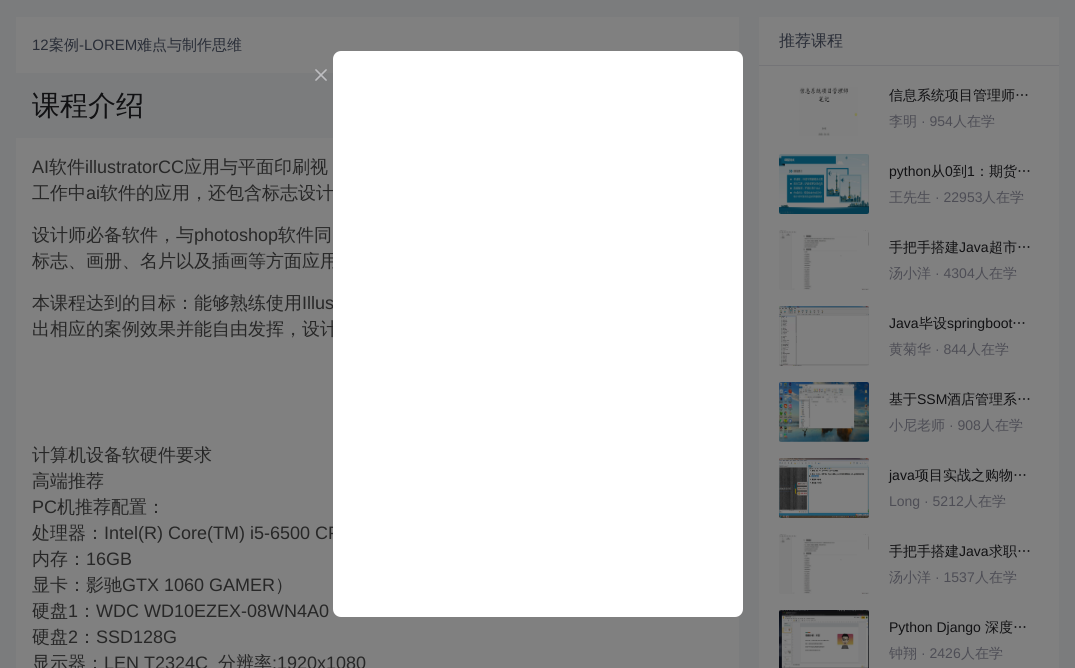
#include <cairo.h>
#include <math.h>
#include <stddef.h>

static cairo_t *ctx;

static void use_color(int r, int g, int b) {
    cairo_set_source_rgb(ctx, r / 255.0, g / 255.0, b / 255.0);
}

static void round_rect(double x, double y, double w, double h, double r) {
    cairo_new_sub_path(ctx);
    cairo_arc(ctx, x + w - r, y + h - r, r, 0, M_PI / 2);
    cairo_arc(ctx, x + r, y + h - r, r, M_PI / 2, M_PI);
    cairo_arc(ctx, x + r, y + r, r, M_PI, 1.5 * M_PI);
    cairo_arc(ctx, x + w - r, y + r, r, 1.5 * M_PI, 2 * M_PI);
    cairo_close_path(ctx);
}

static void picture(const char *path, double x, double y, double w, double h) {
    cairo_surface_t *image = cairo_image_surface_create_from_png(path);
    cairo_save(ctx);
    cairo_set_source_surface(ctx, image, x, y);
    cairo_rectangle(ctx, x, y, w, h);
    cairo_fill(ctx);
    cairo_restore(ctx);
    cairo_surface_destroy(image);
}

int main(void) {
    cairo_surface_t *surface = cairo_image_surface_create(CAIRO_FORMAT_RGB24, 1075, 668);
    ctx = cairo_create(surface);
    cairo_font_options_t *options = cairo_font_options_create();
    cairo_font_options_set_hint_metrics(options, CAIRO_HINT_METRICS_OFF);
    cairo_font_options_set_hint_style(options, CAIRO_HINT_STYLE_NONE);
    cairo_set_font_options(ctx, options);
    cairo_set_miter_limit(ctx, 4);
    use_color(123, 124, 125);
    cairo_paint(ctx);
    use_color(128, 128, 128);
    cairo_rectangle(ctx, 16, 17, 723, 56);
    cairo_fill(ctx);
    cairo_select_font_face(ctx, "Liberation Sans", CAIRO_FONT_SLANT_NORMAL, CAIRO_FONT_WEIGHT_NORMAL);
    cairo_set_font_size(ctx, 15);
    use_color(41, 45, 55);
    cairo_move_to(ctx, 32, 50);
    cairo_show_text(ctx, "12");
    cairo_select_font_face(ctx, "WenQuanYi Zen Hei Medium", CAIRO_FONT_SLANT_NORMAL, CAIRO_FONT_WEIGHT_NORMAL);
    cairo_move_to(ctx, 49, 50);
    cairo_show_text(ctx, "案例");
    cairo_select_font_face(ctx, "Liberation Sans", CAIRO_FONT_SLANT_NORMAL, CAIRO_FONT_WEIGHT_NORMAL);
    cairo_move_to(ctx, 79, 50);
    cairo_show_text(ctx, "-LOREM");
    cairo_select_font_face(ctx, "WenQuanYi Zen Hei Medium", CAIRO_FONT_SLANT_NORMAL, CAIRO_FONT_WEIGHT_NORMAL);
    cairo_move_to(ctx, 137, 50);
    cairo_show_text(ctx, "难点与制作思维");
    cairo_set_font_size(ctx, 28);
    use_color(17, 17, 19);
    cairo_move_to(ctx, 32, 115);
    cairo_show_text(ctx, "课程介绍");
    use_color(128, 128, 128);
    cairo_rectangle(ctx, 16, 138, 723, 530);
    cairo_fill(ctx);
    cairo_select_font_face(ctx, "Liberation Sans", CAIRO_FONT_SLANT_NORMAL, CAIRO_FONT_WEIGHT_NORMAL);
    cairo_set_font_size(ctx, 18);
    use_color(39, 39, 39);
    cairo_move_to(ctx, 32, 173);
    cairo_show_text(ctx, "AI");
    cairo_select_font_face(ctx, "WenQuanYi Zen Hei Medium", CAIRO_FONT_SLANT_NORMAL, CAIRO_FONT_WEIGHT_NORMAL);
    cairo_move_to(ctx, 49, 173);
    cairo_show_text(ctx, "软件");
    cairo_select_font_face(ctx, "Liberation Sans", CAIRO_FONT_SLANT_NORMAL, CAIRO_FONT_WEIGHT_NORMAL);
    cairo_move_to(ctx, 85, 173);
    cairo_show_text(ctx, "illustratorCC");
    cairo_select_font_face(ctx, "WenQuanYi Zen Hei Medium", CAIRO_FONT_SLANT_NORMAL, CAIRO_FONT_WEIGHT_NORMAL);
    cairo_move_to(ctx, 184, 173);
    cairo_show_text(ctx, "应用与平面印刷视");
    cairo_move_to(ctx, 32, 199);
    cairo_show_text(ctx, "工作中");
    cairo_select_font_face(ctx, "Liberation Sans", CAIRO_FONT_SLANT_NORMAL, CAIRO_FONT_WEIGHT_NORMAL);
    cairo_move_to(ctx, 86, 199);
    cairo_show_text(ctx, "ai");
    cairo_select_font_face(ctx, "WenQuanYi Zen Hei Medium", CAIRO_FONT_SLANT_NORMAL, CAIRO_FONT_WEIGHT_NORMAL);
    cairo_move_to(ctx, 100, 199);
    cairo_show_text(ctx, "软件的应用，还包含标志设计");
    cairo_move_to(ctx, 32, 241);
    cairo_show_text(ctx, "设计师必备软件，与");
    cairo_select_font_face(ctx, "Liberation Sans", CAIRO_FONT_SLANT_NORMAL, CAIRO_FONT_WEIGHT_NORMAL);
    cairo_move_to(ctx, 194, 241);
    cairo_show_text(ctx, "photoshop");
    cairo_select_font_face(ctx, "WenQuanYi Zen Hei Medium", CAIRO_FONT_SLANT_NORMAL, CAIRO_FONT_WEIGHT_NORMAL);
    cairo_move_to(ctx, 278, 241);
    cairo_show_text(ctx, "软件同");
    cairo_move_to(ctx, 32, 267);
    cairo_show_text(ctx, "标志、画册、名片以及插画等方面应用");
    cairo_move_to(ctx, 32, 309);
    cairo_show_text(ctx, "本课程达到的目标：能够熟练使用");
    cairo_select_font_face(ctx, "Liberation Sans", CAIRO_FONT_SLANT_NORMAL, CAIRO_FONT_WEIGHT_NORMAL);
    cairo_move_to(ctx, 302, 309);
    cairo_show_text(ctx, "Illus");
    cairo_select_font_face(ctx, "WenQuanYi Zen Hei Medium", CAIRO_FONT_SLANT_NORMAL, CAIRO_FONT_WEIGHT_NORMAL);
    cairo_move_to(ctx, 32, 335);
    cairo_show_text(ctx, "出相应的案例效果并能自由发挥，设计");
    cairo_move_to(ctx, 32, 461);
    cairo_show_text(ctx, "计算机设备软硬件要求");
    cairo_move_to(ctx, 32, 487);
    cairo_show_text(ctx, "高端推荐");
    cairo_select_font_face(ctx, "Liberation Sans", CAIRO_FONT_SLANT_NORMAL, CAIRO_FONT_WEIGHT_NORMAL);
    cairo_move_to(ctx, 32, 513);
    cairo_show_text(ctx, "PC");
    cairo_select_font_face(ctx, "WenQuanYi Zen Hei Medium", CAIRO_FONT_SLANT_NORMAL, CAIRO_FONT_WEIGHT_NORMAL);
    cairo_move_to(ctx, 57, 513);
    cairo_show_text(ctx, "机推荐配置：");
    cairo_move_to(ctx, 32, 539);
    cairo_show_text(ctx, "处理器：");
    cairo_select_font_face(ctx, "Liberation Sans", CAIRO_FONT_SLANT_NORMAL, CAIRO_FONT_WEIGHT_NORMAL);
    cairo_move_to(ctx, 104, 539);
    cairo_show_text(ctx, "Intel(R) Core(TM) i5-6500 CP");
    cairo_select_font_face(ctx, "WenQuanYi Zen Hei Medium", CAIRO_FONT_SLANT_NORMAL, CAIRO_FONT_WEIGHT_NORMAL);
    cairo_move_to(ctx, 32, 565);
    cairo_show_text(ctx, "内存：");
    cairo_select_font_face(ctx, "Liberation Sans", CAIRO_FONT_SLANT_NORMAL, CAIRO_FONT_WEIGHT_NORMAL);
    cairo_move_to(ctx, 86, 565);
    cairo_show_text(ctx, "16GB");
    cairo_select_font_face(ctx, "WenQuanYi Zen Hei Medium", CAIRO_FONT_SLANT_NORMAL, CAIRO_FONT_WEIGHT_NORMAL);
    cairo_move_to(ctx, 32, 591);
    cairo_show_text(ctx, "显卡：影驰");
    cairo_select_font_face(ctx, "Liberation Sans", CAIRO_FONT_SLANT_NORMAL, CAIRO_FONT_WEIGHT_NORMAL);
    cairo_move_to(ctx, 122, 591);
    cairo_show_text(ctx, "GTX 1060 GAMER");
    cairo_select_font_face(ctx, "WenQuanYi Zen Hei Medium", CAIRO_FONT_SLANT_NORMAL, CAIRO_FONT_WEIGHT_NORMAL);
    cairo_move_to(ctx, 275, 591);
    cairo_show_text(ctx, "）");
    cairo_move_to(ctx, 32, 617);
    cairo_show_text(ctx, "硬盘");
    cairo_select_font_face(ctx, "Liberation Sans", CAIRO_FONT_SLANT_NORMAL, CAIRO_FONT_WEIGHT_NORMAL);
    cairo_move_to(ctx, 68, 617);
    cairo_show_text(ctx, "1");
    cairo_select_font_face(ctx, "WenQuanYi Zen Hei Medium", CAIRO_FONT_SLANT_NORMAL, CAIRO_FONT_WEIGHT_NORMAL);
    cairo_move_to(ctx, 78, 617);
    cairo_show_text(ctx, "：");
    cairo_select_font_face(ctx, "Liberation Sans", CAIRO_FONT_SLANT_NORMAL, CAIRO_FONT_WEIGHT_NORMAL);
    cairo_move_to(ctx, 96, 617);
    cairo_show_text(ctx, "WDC WD10EZEX-08WN4A0");
    cairo_select_font_face(ctx, "WenQuanYi Zen Hei Medium", CAIRO_FONT_SLANT_NORMAL, CAIRO_FONT_WEIGHT_NORMAL);
    cairo_move_to(ctx, 32, 643);
    cairo_show_text(ctx, "硬盘");
    cairo_select_font_face(ctx, "Liberation Sans", CAIRO_FONT_SLANT_NORMAL, CAIRO_FONT_WEIGHT_NORMAL);
    cairo_move_to(ctx, 68, 643);
    cairo_show_text(ctx, "2");
    cairo_select_font_face(ctx, "WenQuanYi Zen Hei Medium", CAIRO_FONT_SLANT_NORMAL, CAIRO_FONT_WEIGHT_NORMAL);
    cairo_move_to(ctx, 78, 643);
    cairo_show_text(ctx, "：");
    cairo_select_font_face(ctx, "Liberation Sans", CAIRO_FONT_SLANT_NORMAL, CAIRO_FONT_WEIGHT_NORMAL);
    cairo_move_to(ctx, 96, 643);
    cairo_show_text(ctx, "SSD128G");
    cairo_select_font_face(ctx, "WenQuanYi Zen Hei Medium", CAIRO_FONT_SLANT_NORMAL, CAIRO_FONT_WEIGHT_NORMAL);
    cairo_move_to(ctx, 32, 669);
    cairo_show_text(ctx, "显示器：");
    cairo_select_font_face(ctx, "Liberation Sans", CAIRO_FONT_SLANT_NORMAL, CAIRO_FONT_WEIGHT_NORMAL);
    cairo_move_to(ctx, 104, 669);
    cairo_show_text(ctx, "LEN T2324C");
    cairo_select_font_face(ctx, "WenQuanYi Zen Hei Medium", CAIRO_FONT_SLANT_NORMAL, CAIRO_FONT_WEIGHT_NORMAL);
    cairo_move_to(ctx, 218, 669);
    cairo_show_text(ctx, "分辨率");
    cairo_select_font_face(ctx, "Liberation Sans", CAIRO_FONT_SLANT_NORMAL, CAIRO_FONT_WEIGHT_NORMAL);
    cairo_move_to(ctx, 272, 669);
    cairo_show_text(ctx, ":1920x1080");
    use_color(128, 128, 128);
    cairo_rectangle(ctx, 759, 17, 300, 651);
    cairo_fill(ctx);
    use_color(116, 116, 119);
    cairo_rectangle(ctx, 759, 65, 300, 1);
    cairo_fill(ctx);
    cairo_select_font_face(ctx, "WenQuanYi Zen Hei Medium", CAIRO_FONT_SLANT_NORMAL, CAIRO_FONT_WEIGHT_NORMAL);
    cairo_set_font_size(ctx, 16);
    use_color(41, 45, 55);
    cairo_move_to(ctx, 779, 46);
    cairo_show_text(ctx, "推荐课程");
    picture("img1.png", 799, 87, 59, 49);
    cairo_set_font_size(ctx, 14);
    use_color(17, 17, 19);
    cairo_move_to(ctx, 889, 100);
    cairo_show_text(ctx, "信息系统项目管理师…");
    use_color(77, 77, 85);
    cairo_move_to(ctx, 889, 126);
    cairo_show_text(ctx, "李明");
    cairo_select_font_face(ctx, "Liberation Sans", CAIRO_FONT_SLANT_NORMAL, CAIRO_FONT_WEIGHT_NORMAL);
    cairo_move_to(ctx, 921, 126);
    cairo_show_text(ctx, "· 954");
    cairo_select_font_face(ctx, "WenQuanYi Zen Hei Medium", CAIRO_FONT_SLANT_NORMAL, CAIRO_FONT_WEIGHT_NORMAL);
    cairo_move_to(ctx, 953, 126);
    cairo_show_text(ctx, "人在学");
    picture("img2.png", 779, 154, 90, 60);
    cairo_select_font_face(ctx, "Liberation Sans", CAIRO_FONT_SLANT_NORMAL, CAIRO_FONT_WEIGHT_NORMAL);
    use_color(17, 17, 19);
    cairo_move_to(ctx, 889, 176);
    cairo_show_text(ctx, "python");
    cairo_select_font_face(ctx, "WenQuanYi Zen Hei Medium", CAIRO_FONT_SLANT_NORMAL, CAIRO_FONT_WEIGHT_NORMAL);
    cairo_move_to(ctx, 931, 176);
    cairo_show_text(ctx, "从");
    cairo_select_font_face(ctx, "Liberation Sans", CAIRO_FONT_SLANT_NORMAL, CAIRO_FONT_WEIGHT_NORMAL);
    cairo_move_to(ctx, 945, 176);
    cairo_show_text(ctx, "0");
    cairo_select_font_face(ctx, "WenQuanYi Zen Hei Medium", CAIRO_FONT_SLANT_NORMAL, CAIRO_FONT_WEIGHT_NORMAL);
    cairo_move_to(ctx, 953, 176);
    cairo_show_text(ctx, "到");
    cairo_select_font_face(ctx, "Liberation Sans", CAIRO_FONT_SLANT_NORMAL, CAIRO_FONT_WEIGHT_NORMAL);
    cairo_move_to(ctx, 967, 176);
    cairo_show_text(ctx, "1");
    cairo_select_font_face(ctx, "WenQuanYi Zen Hei Medium", CAIRO_FONT_SLANT_NORMAL, CAIRO_FONT_WEIGHT_NORMAL);
    cairo_move_to(ctx, 975, 176);
    cairo_show_text(ctx, "：期货…");
    use_color(77, 77, 85);
    cairo_move_to(ctx, 889, 202);
    cairo_show_text(ctx, "王先生");
    cairo_select_font_face(ctx, "Liberation Sans", CAIRO_FONT_SLANT_NORMAL, CAIRO_FONT_WEIGHT_NORMAL);
    cairo_move_to(ctx, 935, 202);
    cairo_show_text(ctx, "· 22953");
    cairo_select_font_face(ctx, "WenQuanYi Zen Hei Medium", CAIRO_FONT_SLANT_NORMAL, CAIRO_FONT_WEIGHT_NORMAL);
    cairo_move_to(ctx, 982, 202);
    cairo_show_text(ctx, "人在学");
    picture("img3.png", 779, 230, 90, 60);
    use_color(17, 17, 19);
    cairo_move_to(ctx, 889, 252);
    cairo_show_text(ctx, "手把手搭建");
    cairo_select_font_face(ctx, "Liberation Sans", CAIRO_FONT_SLANT_NORMAL, CAIRO_FONT_WEIGHT_NORMAL);
    cairo_move_to(ctx, 959, 252);
    cairo_show_text(ctx, "Java");
    cairo_select_font_face(ctx, "WenQuanYi Zen Hei Medium", CAIRO_FONT_SLANT_NORMAL, CAIRO_FONT_WEIGHT_NORMAL);
    cairo_move_to(ctx, 989, 252);
    cairo_show_text(ctx, "超市…");
    use_color(77, 77, 85);
    cairo_move_to(ctx, 889, 278);
    cairo_show_text(ctx, "汤小洋");
    cairo_select_font_face(ctx, "Liberation Sans", CAIRO_FONT_SLANT_NORMAL, CAIRO_FONT_WEIGHT_NORMAL);
    cairo_move_to(ctx, 935, 278);
    cairo_show_text(ctx, "· 4304");
    cairo_select_font_face(ctx, "WenQuanYi Zen Hei Medium", CAIRO_FONT_SLANT_NORMAL, CAIRO_FONT_WEIGHT_NORMAL);
    cairo_move_to(ctx, 975, 278);
    cairo_show_text(ctx, "人在学");
    picture("img4.png", 779, 306, 90, 60);
    cairo_select_font_face(ctx, "Liberation Sans", CAIRO_FONT_SLANT_NORMAL, CAIRO_FONT_WEIGHT_NORMAL);
    use_color(17, 17, 19);
    cairo_move_to(ctx, 889, 328);
    cairo_show_text(ctx, "Java");
    cairo_select_font_face(ctx, "WenQuanYi Zen Hei Medium", CAIRO_FONT_SLANT_NORMAL, CAIRO_FONT_WEIGHT_NORMAL);
    cairo_move_to(ctx, 919, 328);
    cairo_show_text(ctx, "毕设");
    cairo_select_font_face(ctx, "Liberation Sans", CAIRO_FONT_SLANT_NORMAL, CAIRO_FONT_WEIGHT_NORMAL);
    cairo_move_to(ctx, 947, 328);
    cairo_show_text(ctx, "springboot");
    cairo_select_font_face(ctx, "WenQuanYi Zen Hei Medium", CAIRO_FONT_SLANT_NORMAL, CAIRO_FONT_WEIGHT_NORMAL);
    cairo_move_to(ctx, 1012, 328);
    cairo_show_text(ctx, "…");
    use_color(77, 77, 85);
    cairo_move_to(ctx, 889, 354);
    cairo_show_text(ctx, "黄菊华");
    cairo_select_font_face(ctx, "Liberation Sans", CAIRO_FONT_SLANT_NORMAL, CAIRO_FONT_WEIGHT_NORMAL);
    cairo_move_to(ctx, 935, 354);
    cairo_show_text(ctx, "· 844");
    cairo_select_font_face(ctx, "WenQuanYi Zen Hei Medium", CAIRO_FONT_SLANT_NORMAL, CAIRO_FONT_WEIGHT_NORMAL);
    cairo_move_to(ctx, 967, 354);
    cairo_show_text(ctx, "人在学");
    picture("img5.png", 779, 382, 90, 60);
    use_color(17, 17, 19);
    cairo_move_to(ctx, 889, 404);
    cairo_show_text(ctx, "基于");
    cairo_select_font_face(ctx, "Liberation Sans", CAIRO_FONT_SLANT_NORMAL, CAIRO_FONT_WEIGHT_NORMAL);
    cairo_move_to(ctx, 917, 404);
    cairo_show_text(ctx, "SSM");
    cairo_select_font_face(ctx, "WenQuanYi Zen Hei Medium", CAIRO_FONT_SLANT_NORMAL, CAIRO_FONT_WEIGHT_NORMAL);
    cairo_move_to(ctx, 947, 404);
    cairo_show_text(ctx, "酒店管理系…");
    use_color(77, 77, 85);
    cairo_move_to(ctx, 889, 430);
    cairo_show_text(ctx, "小尼老师");
    cairo_select_font_face(ctx, "Liberation Sans", CAIRO_FONT_SLANT_NORMAL, CAIRO_FONT_WEIGHT_NORMAL);
    cairo_move_to(ctx, 949, 430);
    cairo_show_text(ctx, "· 908");
    cairo_select_font_face(ctx, "WenQuanYi Zen Hei Medium", CAIRO_FONT_SLANT_NORMAL, CAIRO_FONT_WEIGHT_NORMAL);
    cairo_move_to(ctx, 981, 430);
    cairo_show_text(ctx, "人在学");
    picture("img6.png", 779, 458, 90, 60);
    cairo_select_font_face(ctx, "Liberation Sans", CAIRO_FONT_SLANT_NORMAL, CAIRO_FONT_WEIGHT_NORMAL);
    use_color(17, 17, 19);
    cairo_move_to(ctx, 889, 480);
    cairo_show_text(ctx, "java");
    cairo_select_font_face(ctx, "WenQuanYi Zen Hei Medium", CAIRO_FONT_SLANT_NORMAL, CAIRO_FONT_WEIGHT_NORMAL);
    cairo_move_to(ctx, 915, 480);
    cairo_show_text(ctx, "项目实战之购物…");
    cairo_select_font_face(ctx, "Liberation Sans", CAIRO_FONT_SLANT_NORMAL, CAIRO_FONT_WEIGHT_NORMAL);
    use_color(77, 77, 85);
    cairo_move_to(ctx, 889, 506);
    cairo_show_text(ctx, "Long · 5212");
    cairo_select_font_face(ctx, "WenQuanYi Zen Hei Medium", CAIRO_FONT_SLANT_NORMAL, CAIRO_FONT_WEIGHT_NORMAL);
    cairo_move_to(ctx, 964, 506);
    cairo_show_text(ctx, "人在学");
    picture("img7.png", 779, 534, 90, 60);
    use_color(17, 17, 19);
    cairo_move_to(ctx, 889, 556);
    cairo_show_text(ctx, "手把手搭建");
    cairo_select_font_face(ctx, "Liberation Sans", CAIRO_FONT_SLANT_NORMAL, CAIRO_FONT_WEIGHT_NORMAL);
    cairo_move_to(ctx, 959, 556);
    cairo_show_text(ctx, "Java");
    cairo_select_font_face(ctx, "WenQuanYi Zen Hei Medium", CAIRO_FONT_SLANT_NORMAL, CAIRO_FONT_WEIGHT_NORMAL);
    cairo_move_to(ctx, 989, 556);
    cairo_show_text(ctx, "求职…");
    use_color(77, 77, 85);
    cairo_move_to(ctx, 889, 582);
    cairo_show_text(ctx, "汤小洋");
    cairo_select_font_face(ctx, "Liberation Sans", CAIRO_FONT_SLANT_NORMAL, CAIRO_FONT_WEIGHT_NORMAL);
    cairo_move_to(ctx, 935, 582);
    cairo_show_text(ctx, "· 1537");
    cairo_select_font_face(ctx, "WenQuanYi Zen Hei Medium", CAIRO_FONT_SLANT_NORMAL, CAIRO_FONT_WEIGHT_NORMAL);
    cairo_move_to(ctx, 975, 582);
    cairo_show_text(ctx, "人在学");
    picture("img8.png", 779, 610, 90, 58);
    cairo_select_font_face(ctx, "Liberation Sans", CAIRO_FONT_SLANT_NORMAL, CAIRO_FONT_WEIGHT_NORMAL);
    use_color(17, 17, 19);
    cairo_move_to(ctx, 889, 632);
    cairo_show_text(ctx, "Python Django");
    cairo_select_font_face(ctx, "WenQuanYi Zen Hei Medium", CAIRO_FONT_SLANT_NORMAL, CAIRO_FONT_WEIGHT_NORMAL);
    cairo_move_to(ctx, 985, 632);
    cairo_show_text(ctx, "深度…");
    use_color(77, 77, 85);
    cairo_move_to(ctx, 889, 658);
    cairo_show_text(ctx, "钟翔");
    cairo_select_font_face(ctx, "Liberation Sans", CAIRO_FONT_SLANT_NORMAL, CAIRO_FONT_WEIGHT_NORMAL);
    cairo_move_to(ctx, 921, 658);
    cairo_show_text(ctx, "· 2426");
    cairo_select_font_face(ctx, "WenQuanYi Zen Hei Medium", CAIRO_FONT_SLANT_NORMAL, CAIRO_FONT_WEIGHT_NORMAL);
    cairo_move_to(ctx, 961, 658);
    cairo_show_text(ctx, "人在学");
    use_color(255, 255, 255);
    round_rect(333, 51, 410, 566, 8);
    cairo_fill(ctx);
    picture("img9.png", 315, 69, 12, 12);
    cairo_surface_write_to_png(surface, "result.png");
    cairo_font_options_destroy(options);
    cairo_destroy(ctx);
    cairo_surface_destroy(surface);
    return 0;
}
